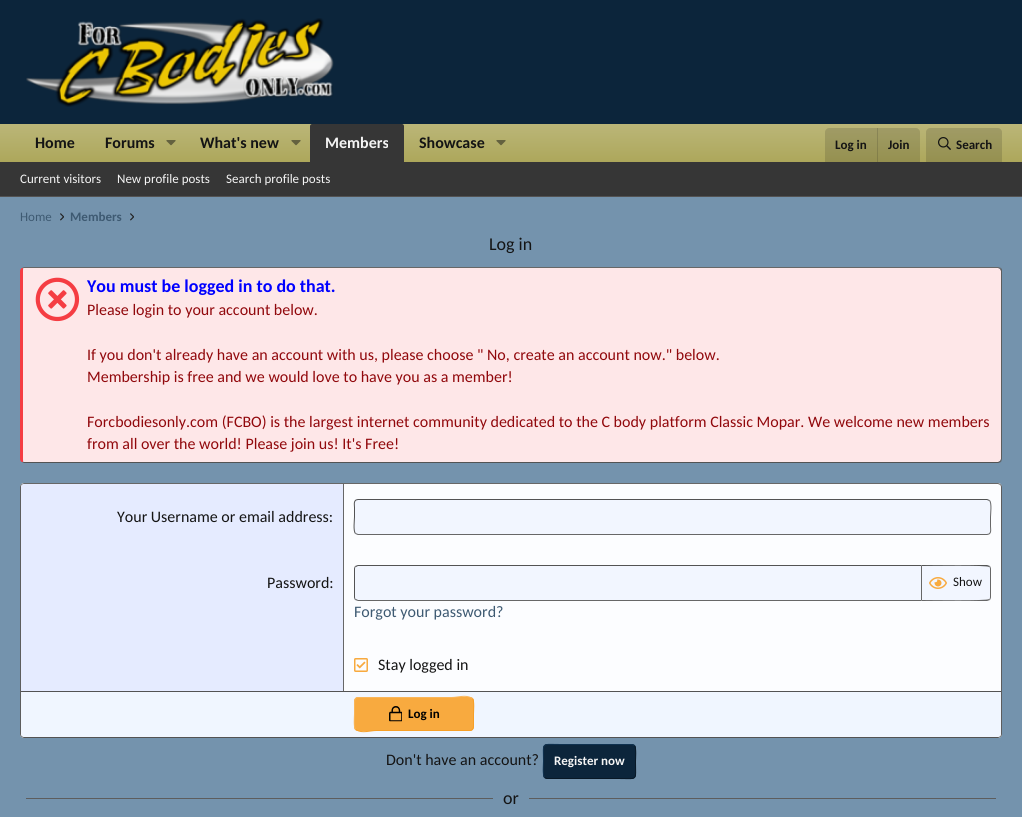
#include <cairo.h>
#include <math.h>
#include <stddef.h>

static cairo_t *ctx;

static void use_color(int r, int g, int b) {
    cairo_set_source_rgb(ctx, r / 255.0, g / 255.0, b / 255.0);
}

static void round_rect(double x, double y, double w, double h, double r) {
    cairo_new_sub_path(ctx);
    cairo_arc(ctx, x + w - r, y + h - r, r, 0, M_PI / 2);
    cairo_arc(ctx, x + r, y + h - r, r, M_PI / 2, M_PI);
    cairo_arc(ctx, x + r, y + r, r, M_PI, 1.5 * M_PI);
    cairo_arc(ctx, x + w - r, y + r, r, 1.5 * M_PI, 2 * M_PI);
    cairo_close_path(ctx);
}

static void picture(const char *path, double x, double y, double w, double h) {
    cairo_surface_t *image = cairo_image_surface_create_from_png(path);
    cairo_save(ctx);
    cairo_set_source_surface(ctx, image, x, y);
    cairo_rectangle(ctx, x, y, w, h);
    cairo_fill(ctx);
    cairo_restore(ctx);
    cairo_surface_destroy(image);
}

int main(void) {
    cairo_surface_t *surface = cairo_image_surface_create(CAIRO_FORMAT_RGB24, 1022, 817);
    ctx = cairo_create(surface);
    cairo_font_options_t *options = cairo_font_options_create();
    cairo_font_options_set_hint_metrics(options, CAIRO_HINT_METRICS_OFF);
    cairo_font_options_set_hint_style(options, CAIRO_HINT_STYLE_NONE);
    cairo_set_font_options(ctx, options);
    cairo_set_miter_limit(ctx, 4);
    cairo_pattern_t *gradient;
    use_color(116, 147, 173);
    cairo_paint(ctx);
    use_color(12, 37, 59);
    cairo_rectangle(ctx, 0, 0, 1022, 124);
    cairo_fill(ctx);
    picture("img1.png", 26, 18, 308, 89);
    gradient = cairo_pattern_create_linear(511, 124, 511, 162);
    cairo_pattern_add_color_stop_rgba(gradient, 0, 0.733, 0.714, 0.471, 1);
    cairo_pattern_add_color_stop_rgba(gradient, 1, 0.678, 0.655, 0.357, 1);
    cairo_set_source(ctx, gradient);
    cairo_pattern_destroy(gradient);
    cairo_rectangle(ctx, 0, 124, 1022, 38);
    cairo_fill(ctx);
    cairo_select_font_face(ctx, "Carlito", CAIRO_FONT_SLANT_NORMAL, CAIRO_FONT_WEIGHT_BOLD);
    cairo_set_font_size(ctx, 16);
    use_color(20, 20, 20);
    cairo_move_to(ctx, 35, 148);
    cairo_show_text(ctx, "Home");
    cairo_move_to(ctx, 105, 148);
    cairo_show_text(ctx, "Forums");
    picture("img2.png", 166, 140, 10, 6);
    cairo_move_to(ctx, 200, 148);
    cairo_show_text(ctx, "What's new");
    picture("img2.png", 291, 140, 10, 6);
    use_color(54, 54, 54);
    cairo_new_path(ctx);
    cairo_move_to(ctx, 312, 124);
    cairo_line_to(ctx, 402, 124);
    cairo_curve_to(ctx, 403, 124, 404, 125, 404, 126);
    cairo_line_to(ctx, 404, 162);
    cairo_line_to(ctx, 310, 162);
    cairo_line_to(ctx, 310, 126);
    cairo_curve_to(ctx, 310, 125, 311, 124, 312, 124);
    cairo_close_path(ctx);
    cairo_fill(ctx);
    use_color(245, 245, 245);
    cairo_move_to(ctx, 325, 148);
    cairo_show_text(ctx, "Members");
    use_color(20, 20, 20);
    cairo_move_to(ctx, 419, 148);
    cairo_show_text(ctx, "Showcase");
    picture("img2.png", 496, 140, 10, 6);
    cairo_set_source_rgba(ctx, 0.078, 0.078, 0.078, 0.15);
    cairo_new_path(ctx);
    cairo_move_to(ctx, 829, 128);
    cairo_line_to(ctx, 916, 128);
    cairo_curve_to(ctx, 918, 128, 920, 130, 920, 132);
    cairo_line_to(ctx, 920, 162);
    cairo_line_to(ctx, 825, 162);
    cairo_line_to(ctx, 825, 132);
    cairo_curve_to(ctx, 825, 130, 827, 128, 829, 128);
    cairo_close_path(ctx);
    cairo_fill(ctx);
    cairo_set_font_size(ctx, 13);
    use_color(20, 20, 20);
    cairo_move_to(ctx, 835, 149);
    cairo_show_text(ctx, "Log in");
    cairo_set_source_rgba(ctx, 0.078, 0.078, 0.078, 0.15);
    cairo_rectangle(ctx, 877, 128, 1, 34);
    cairo_fill(ctx);
    use_color(20, 20, 20);
    cairo_move_to(ctx, 888, 149);
    cairo_show_text(ctx, "Join");
    cairo_set_source_rgba(ctx, 0.078, 0.078, 0.078, 0.15);
    cairo_new_path(ctx);
    cairo_move_to(ctx, 930, 128);
    cairo_line_to(ctx, 998, 128);
    cairo_curve_to(ctx, 1000, 128, 1002, 130, 1002, 132);
    cairo_line_to(ctx, 1002, 162);
    cairo_line_to(ctx, 926, 162);
    cairo_line_to(ctx, 926, 132);
    cairo_curve_to(ctx, 926, 130, 928, 128, 930, 128);
    cairo_close_path(ctx);
    cairo_fill(ctx);
    picture("img3.png", 938, 137, 13, 13);
    use_color(20, 20, 20);
    cairo_move_to(ctx, 956, 149);
    cairo_show_text(ctx, "Search");
    use_color(54, 54, 54);
    cairo_rectangle(ctx, 0, 162, 1022, 34);
    cairo_fill(ctx);
    use_color(83, 83, 83);
    cairo_rectangle(ctx, 0, 196, 1022, 1);
    cairo_fill(ctx);
    cairo_select_font_face(ctx, "Carlito", CAIRO_FONT_SLANT_NORMAL, CAIRO_FONT_WEIGHT_NORMAL);
    use_color(245, 245, 245);
    cairo_move_to(ctx, 20, 183);
    cairo_show_text(ctx, "Current visitors");
    cairo_move_to(ctx, 117, 183);
    cairo_show_text(ctx, "New profile posts");
    cairo_move_to(ctx, 226, 183);
    cairo_show_text(ctx, "Search profile posts");
    use_color(62, 90, 114);
    cairo_move_to(ctx, 20, 221);
    cairo_show_text(ctx, "Home");
    picture("img4.png", 60, 213, 4, 8);
    cairo_select_font_face(ctx, "Carlito", CAIRO_FONT_SLANT_NORMAL, CAIRO_FONT_WEIGHT_BOLD);
    cairo_move_to(ctx, 70, 221);
    cairo_show_text(ctx, "Members");
    picture("img4.png", 130, 213, 4, 8);
    cairo_select_font_face(ctx, "Carlito", CAIRO_FONT_SLANT_NORMAL, CAIRO_FONT_WEIGHT_NORMAL);
    cairo_set_font_size(ctx, 18);
    use_color(20, 20, 20);
    cairo_move_to(ctx, 489, 250);
    cairo_show_text(ctx, "Log in");
    use_color(254, 231, 232);
    cairo_new_path(ctx);
    cairo_move_to(ctx, 24, 268);
    cairo_line_to(ctx, 998, 268);
    cairo_curve_to(ctx, 1000, 268, 1001, 269, 1001, 271);
    cairo_line_to(ctx, 1001, 459);
    cairo_curve_to(ctx, 1001, 461, 1000, 462, 998, 462);
    cairo_line_to(ctx, 24, 462);
    cairo_curve_to(ctx, 23, 462, 23, 461, 23, 459);
    cairo_line_to(ctx, 23, 271);
    cairo_curve_to(ctx, 23, 269, 23, 268, 24, 268);
    cairo_close_path(ctx);
    cairo_fill(ctx);
    use_color(103, 103, 103);
    cairo_new_path(ctx);
    cairo_move_to(ctx, 24, 267);
    cairo_line_to(ctx, 22, 268);
    cairo_line_to(ctx, 23, 268);
    cairo_line_to(ctx, 998, 268);
    cairo_line_to(ctx, 1000, 269);
    cairo_line_to(ctx, 1001, 268);
    cairo_line_to(ctx, 998, 267);
    cairo_close_path(ctx);
    cairo_fill(ctx);
    use_color(93, 93, 93);
    cairo_new_path(ctx);
    cairo_move_to(ctx, 1002, 459);
    cairo_line_to(ctx, 1002, 271);
    cairo_curve_to(ctx, 1002, 270, 1002, 269, 1001, 268);
    cairo_line_to(ctx, 1000, 269);
    cairo_line_to(ctx, 1001, 271);
    cairo_line_to(ctx, 1001, 459);
    cairo_line_to(ctx, 1000, 461);
    cairo_line_to(ctx, 1001, 462);
    cairo_close_path(ctx);
    cairo_fill(ctx);
    use_color(83, 83, 83);
    cairo_new_path(ctx);
    cairo_move_to(ctx, 24, 463);
    cairo_line_to(ctx, 998, 463);
    cairo_line_to(ctx, 1001, 462);
    cairo_line_to(ctx, 1000, 461);
    cairo_line_to(ctx, 998, 462);
    cairo_line_to(ctx, 23, 462);
    cairo_line_to(ctx, 22, 462);
    cairo_close_path(ctx);
    cairo_fill(ctx);
    use_color(245, 61, 67);
    cairo_new_path(ctx);
    cairo_move_to(ctx, 20, 271);
    cairo_line_to(ctx, 20, 459);
    cairo_curve_to(ctx, 20, 460, 21, 462, 22, 462);
    cairo_line_to(ctx, 23, 462);
    cairo_line_to(ctx, 23, 459);
    cairo_line_to(ctx, 23, 271);
    cairo_line_to(ctx, 23, 268);
    cairo_line_to(ctx, 22, 268);
    cairo_curve_to(ctx, 21, 268, 20, 270, 20, 271);
    cairo_close_path(ctx);
    cairo_fill(ctx);
    picture("img5.png", 35, 277, 45, 45);
    cairo_select_font_face(ctx, "Carlito", CAIRO_FONT_SLANT_NORMAL, CAIRO_FONT_WEIGHT_BOLD);
    use_color(0, 0, 255);
    cairo_move_to(ctx, 87, 292);
    cairo_show_text(ctx, "You must be logged in to do that.");
    cairo_select_font_face(ctx, "Carlito", CAIRO_FONT_SLANT_NORMAL, CAIRO_FONT_WEIGHT_NORMAL);
    cairo_set_font_size(ctx, 16);
    use_color(145, 8, 12);
    cairo_move_to(ctx, 87, 315);
    cairo_show_text(ctx, "Please login to your account below.");
    cairo_move_to(ctx, 87, 360);
    cairo_show_text(ctx, "If you don't already have an account with us, please choose \" No, create an account now.\" below.");
    cairo_move_to(ctx, 87, 382);
    cairo_show_text(ctx, "Membership is free and we would love to have you as a member!");
    cairo_move_to(ctx, 87, 427);
    cairo_show_text(ctx, "Forcbodiesonly.com (FCBO) is the largest internet community dedicated to the C body platform Classic Mopar. We welcome new members");
    cairo_move_to(ctx, 87, 449);
    cairo_show_text(ctx, "from all over the world! Please join us! It's Free!");
    use_color(252, 253, 255);
    round_rect(20, 483, 982, 255, 4);
    cairo_fill(ctx);
    cairo_new_path(ctx);
    cairo_move_to(ctx, 21.5, 484.5);
    cairo_line_to(ctx, 24, 483.5);
    cairo_line_to(ctx, 998, 483.5);
    cairo_line_to(ctx, 1000.5, 484.5);
    use_color(103, 103, 103);
    cairo_set_line_width(ctx, 1);
    cairo_stroke(ctx);
    cairo_new_path(ctx);
    cairo_move_to(ctx, 1000.5, 484.5);
    cairo_curve_to(ctx, 1001, 485, 1001.5, 486, 1001.5, 487);
    cairo_line_to(ctx, 1001.5, 734);
    cairo_curve_to(ctx, 1001.5, 735, 1001, 736, 1000.5, 736.5);
    use_color(93, 93, 93);
    cairo_stroke(ctx);
    cairo_new_path(ctx);
    cairo_move_to(ctx, 1000.5, 736.5);
    cairo_line_to(ctx, 998, 737.5);
    cairo_line_to(ctx, 24, 737.5);
    cairo_line_to(ctx, 21.5, 736.5);
    use_color(83, 83, 83);
    cairo_stroke(ctx);
    cairo_new_path(ctx);
    cairo_move_to(ctx, 21.5, 736.5);
    cairo_curve_to(ctx, 21, 736, 20.5, 735, 20.5, 734);
    cairo_line_to(ctx, 20.5, 487);
    cairo_curve_to(ctx, 20.5, 486, 21, 485, 21.5, 484.5);
    use_color(93, 93, 93);
    cairo_stroke(ctx);
    use_color(229, 235, 255);
    cairo_new_path(ctx);
    cairo_move_to(ctx, 24, 484);
    cairo_line_to(ctx, 344, 484);
    cairo_line_to(ctx, 344, 550);
    cairo_line_to(ctx, 21, 550);
    cairo_line_to(ctx, 21, 487);
    cairo_curve_to(ctx, 21, 485.5, 22.5, 484, 24, 484);
    cairo_close_path(ctx);
    cairo_fill(ctx);
    use_color(103, 103, 103);
    cairo_rectangle(ctx, 343, 484, 1, 207);
    cairo_fill(ctx);
    use_color(20, 20, 20);
    cairo_move_to(ctx, 117, 522);
    cairo_show_text(ctx, "Your Username or email address:");
    use_color(242, 246, 255);
    round_rect(354, 499, 637, 36, 4);
    cairo_fill(ctx);
    cairo_new_path(ctx);
    cairo_move_to(ctx, 989.5, 500.5);
    cairo_curve_to(ctx, 992, 503, 990.5, 514, 990.5, 517);
    cairo_line_to(ctx, 990.5, 526.5);
    cairo_curve_to(ctx, 990.5, 528.5, 991.5, 532.5, 989, 534);
    cairo_line_to(ctx, 987, 534.5);
    cairo_line_to(ctx, 358, 534.5);
    cairo_line_to(ctx, 355.5, 533.5);
    use_color(103, 103, 103);
    cairo_stroke(ctx);
    cairo_new_path(ctx);
    cairo_move_to(ctx, 355.5, 533.5);
    cairo_curve_to(ctx, 353, 531, 354.5, 520, 354.5, 517);
    cairo_line_to(ctx, 354.5, 507.5);
    cairo_curve_to(ctx, 354.5, 505.5, 353.5, 501.5, 356, 500);
    cairo_line_to(ctx, 358, 499.5);
    cairo_line_to(ctx, 987, 499.5);
    cairo_line_to(ctx, 989.5, 500.5);
    use_color(83, 83, 83);
    cairo_stroke(ctx);
    use_color(229, 235, 255);
    cairo_rectangle(ctx, 21, 550, 322, 141);
    cairo_fill(ctx);
    use_color(20, 20, 20);
    cairo_move_to(ctx, 267, 588);
    cairo_show_text(ctx, "Password:");
    use_color(242, 246, 255);
    cairo_new_path(ctx);
    cairo_move_to(ctx, 358, 565);
    cairo_line_to(ctx, 921, 565);
    cairo_line_to(ctx, 921, 601);
    cairo_line_to(ctx, 358, 601);
    cairo_curve_to(ctx, 356, 601, 354, 599, 354, 597);
    cairo_line_to(ctx, 354, 569);
    cairo_curve_to(ctx, 354, 567, 356, 565, 358, 565);
    cairo_close_path(ctx);
    cairo_fill(ctx);
    use_color(83, 83, 83);
    cairo_new_path(ctx);
    cairo_move_to(ctx, 358, 565);
    cairo_line_to(ctx, 355, 566);
    cairo_line_to(ctx, 356, 567);
    cairo_line_to(ctx, 358, 566);
    cairo_line_to(ctx, 921, 566);
    cairo_line_to(ctx, 921, 565);
    cairo_close_path(ctx);
    cairo_fill(ctx);
    use_color(103, 103, 103);
    cairo_new_path(ctx);
    cairo_move_to(ctx, 921, 601);
    cairo_line_to(ctx, 921, 600);
    cairo_line_to(ctx, 358, 600);
    cairo_line_to(ctx, 356, 599);
    cairo_line_to(ctx, 355, 600);
    cairo_line_to(ctx, 358, 601);
    cairo_close_path(ctx);
    cairo_fill(ctx);
    use_color(83, 83, 83);
    cairo_new_path(ctx);
    cairo_move_to(ctx, 354, 569);
    cairo_line_to(ctx, 354, 597);
    cairo_curve_to(ctx, 354, 598, 354.5, 599, 355, 600);
    cairo_line_to(ctx, 356, 599);
    cairo_curve_to(ctx, 355, 599, 355, 598, 355, 597);
    cairo_line_to(ctx, 355, 569);
    cairo_curve_to(ctx, 355, 568, 355, 567, 356, 567);
    cairo_line_to(ctx, 355, 566);
    cairo_curve_to(ctx, 354.5, 567, 354, 568, 354, 569);
    cairo_close_path(ctx);
    cairo_fill(ctx);
    use_color(242, 246, 255);
    cairo_new_path(ctx);
    cairo_move_to(ctx, 921, 565);
    cairo_line_to(ctx, 987, 565);
    cairo_curve_to(ctx, 989, 565, 991, 567, 991, 569);
    cairo_line_to(ctx, 991, 597);
    cairo_curve_to(ctx, 991, 599, 989, 601, 987, 601);
    cairo_line_to(ctx, 921, 601);
    cairo_close_path(ctx);
    cairo_fill(ctx);
    use_color(83, 83, 83);
    cairo_new_path(ctx);
    cairo_move_to(ctx, 921, 565);
    cairo_line_to(ctx, 922, 566);
    cairo_curve_to(ctx, 929, 566, 988, 565, 989, 567);
    cairo_line_to(ctx, 990, 566);
    cairo_line_to(ctx, 987, 565);
    cairo_close_path(ctx);
    cairo_fill(ctx);
    use_color(103, 103, 103);
    cairo_new_path(ctx);
    cairo_move_to(ctx, 991, 597);
    cairo_line_to(ctx, 991, 569);
    cairo_curve_to(ctx, 991, 568, 990.5, 567, 990, 566);
    cairo_line_to(ctx, 989, 567);
    cairo_curve_to(ctx, 990, 567, 990, 568, 990, 569);
    cairo_line_to(ctx, 990, 597);
    cairo_curve_to(ctx, 990, 598, 990, 599, 989, 599);
    cairo_line_to(ctx, 990, 600);
    cairo_curve_to(ctx, 990.5, 599, 991, 598, 991, 597);
    cairo_close_path(ctx);
    cairo_fill(ctx);
    cairo_new_path(ctx);
    cairo_move_to(ctx, 987, 601);
    cairo_line_to(ctx, 990, 600);
    cairo_line_to(ctx, 989, 599);
    cairo_curve_to(ctx, 988, 601, 929, 600, 922, 600);
    cairo_line_to(ctx, 921, 601);
    cairo_close_path(ctx);
    cairo_fill(ctx);
    cairo_new_path(ctx);
    cairo_move_to(ctx, 921, 565);
    cairo_line_to(ctx, 921, 601);
    cairo_line_to(ctx, 922, 600);
    cairo_line_to(ctx, 922, 566);
    cairo_close_path(ctx);
    cairo_fill(ctx);
    picture("img6.png", 929, 577, 18, 12);
    cairo_set_font_size(ctx, 13);
    use_color(20, 20, 20);
    cairo_move_to(ctx, 953, 586);
    cairo_show_text(ctx, "Show");
    cairo_set_font_size(ctx, 16);
    use_color(62, 90, 114);
    cairo_move_to(ctx, 354, 617);
    cairo_show_text(ctx, "Forgot your password?");
    picture("img7.png", 354, 658, 14, 14);
    use_color(20, 20, 20);
    cairo_move_to(ctx, 378, 670);
    cairo_show_text(ctx, "Stay logged in");
    cairo_set_source_rgba(ctx, 0.937, 0.961, 1, 0.9);
    cairo_new_path(ctx);
    cairo_move_to(ctx, 21, 691);
    cairo_line_to(ctx, 1001, 691);
    cairo_line_to(ctx, 1001, 734);
    cairo_curve_to(ctx, 1001, 735.5, 999.5, 737, 998, 737);
    cairo_line_to(ctx, 24, 737);
    cairo_curve_to(ctx, 22.5, 737, 21, 735.5, 21, 734);
    cairo_close_path(ctx);
    cairo_fill(ctx);
    use_color(83, 83, 83);
    cairo_rectangle(ctx, 21, 691, 980, 1);
    cairo_fill(ctx);
    use_color(248, 170, 63);
    round_rect(354, 697, 120, 34, 4);
    cairo_fill(ctx);
    cairo_new_path(ctx);
    cairo_move_to(ctx, 472.5, 698.5);
    cairo_curve_to(ctx, 474.5, 701, 473.5, 711, 473.5, 714);
    cairo_line_to(ctx, 473.5, 722.5);
    cairo_curve_to(ctx, 473.5, 725.5, 474, 730.5, 470, 730.5);
    cairo_line_to(ctx, 376.5, 730.5);
    cairo_curve_to(ctx, 370, 730.5, 362.5, 733.5, 356.5, 730);
    cairo_line_to(ctx, 355.5, 729.5);
    use_color(247, 159, 38);
    cairo_stroke(ctx);
    cairo_new_path(ctx);
    cairo_move_to(ctx, 355.5, 729.5);
    cairo_curve_to(ctx, 353.5, 727, 354.5, 717, 354.5, 714);
    cairo_line_to(ctx, 354.5, 705.5);
    cairo_curve_to(ctx, 354.5, 702.5, 354, 697.5, 358, 697.5);
    cairo_line_to(ctx, 451.5, 697.5);
    cairo_curve_to(ctx, 458, 697.5, 465.5, 694.5, 471.5, 698);
    cairo_line_to(ctx, 472.5, 698.5);
    use_color(249, 181, 88);
    cairo_stroke(ctx);
    picture("img8.png", 389, 706, 13, 16);
    cairo_select_font_face(ctx, "Carlito", CAIRO_FONT_SLANT_NORMAL, CAIRO_FONT_WEIGHT_BOLD);
    cairo_set_font_size(ctx, 13);
    use_color(0, 0, 0);
    cairo_move_to(ctx, 408, 718);
    cairo_show_text(ctx, "Log in");
    cairo_select_font_face(ctx, "Carlito", CAIRO_FONT_SLANT_NORMAL, CAIRO_FONT_WEIGHT_NORMAL);
    cairo_set_font_size(ctx, 16);
    use_color(20, 20, 20);
    cairo_move_to(ctx, 386, 765);
    cairo_show_text(ctx, "Don't have an account?");
    use_color(12, 37, 59);
    round_rect(543, 744, 93, 35, 4);
    cairo_fill(ctx);
    cairo_new_path(ctx);
    cairo_move_to(ctx, 634.5, 745.5);
    cairo_curve_to(ctx, 636.5, 748, 635.5, 758.5, 635.5, 761.5);
    cairo_curve_to(ctx, 635.5, 781.5, 638.5, 778.5, 618, 778.5);
    cairo_line_to(ctx, 547, 778.5);
    cairo_line_to(ctx, 544.5, 777.5);
    use_color(8, 24, 38);
    cairo_stroke(ctx);
    cairo_new_path(ctx);
    cairo_move_to(ctx, 544.5, 777.5);
    cairo_curve_to(ctx, 542.5, 775, 543.5, 764.5, 543.5, 761.5);
    cairo_curve_to(ctx, 543.5, 741.5, 540.5, 744.5, 561, 744.5);
    cairo_line_to(ctx, 632, 744.5);
    cairo_line_to(ctx, 634.5, 745.5);
    use_color(16, 50, 80);
    cairo_stroke(ctx);
    cairo_select_font_face(ctx, "Carlito", CAIRO_FONT_SLANT_NORMAL, CAIRO_FONT_WEIGHT_BOLD);
    cairo_set_font_size(ctx, 13);
    use_color(245, 245, 245);
    cairo_move_to(ctx, 554, 765);
    cairo_show_text(ctx, "Register now");
    use_color(93, 93, 93);
    cairo_rectangle(ctx, 26, 798, 467, 1);
    cairo_fill(ctx);
    cairo_select_font_face(ctx, "Carlito", CAIRO_FONT_SLANT_NORMAL, CAIRO_FONT_WEIGHT_NORMAL);
    cairo_set_font_size(ctx, 18);
    use_color(20, 20, 20);
    cairo_move_to(ctx, 503, 804);
    cairo_show_text(ctx, "or");
    use_color(93, 93, 93);
    cairo_rectangle(ctx, 529, 798, 467, 1);
    cairo_fill(ctx);
    cairo_surface_write_to_png(surface, "result.png");
    cairo_font_options_destroy(options);
    cairo_destroy(ctx);
    cairo_surface_destroy(surface);
    return 0;
}
